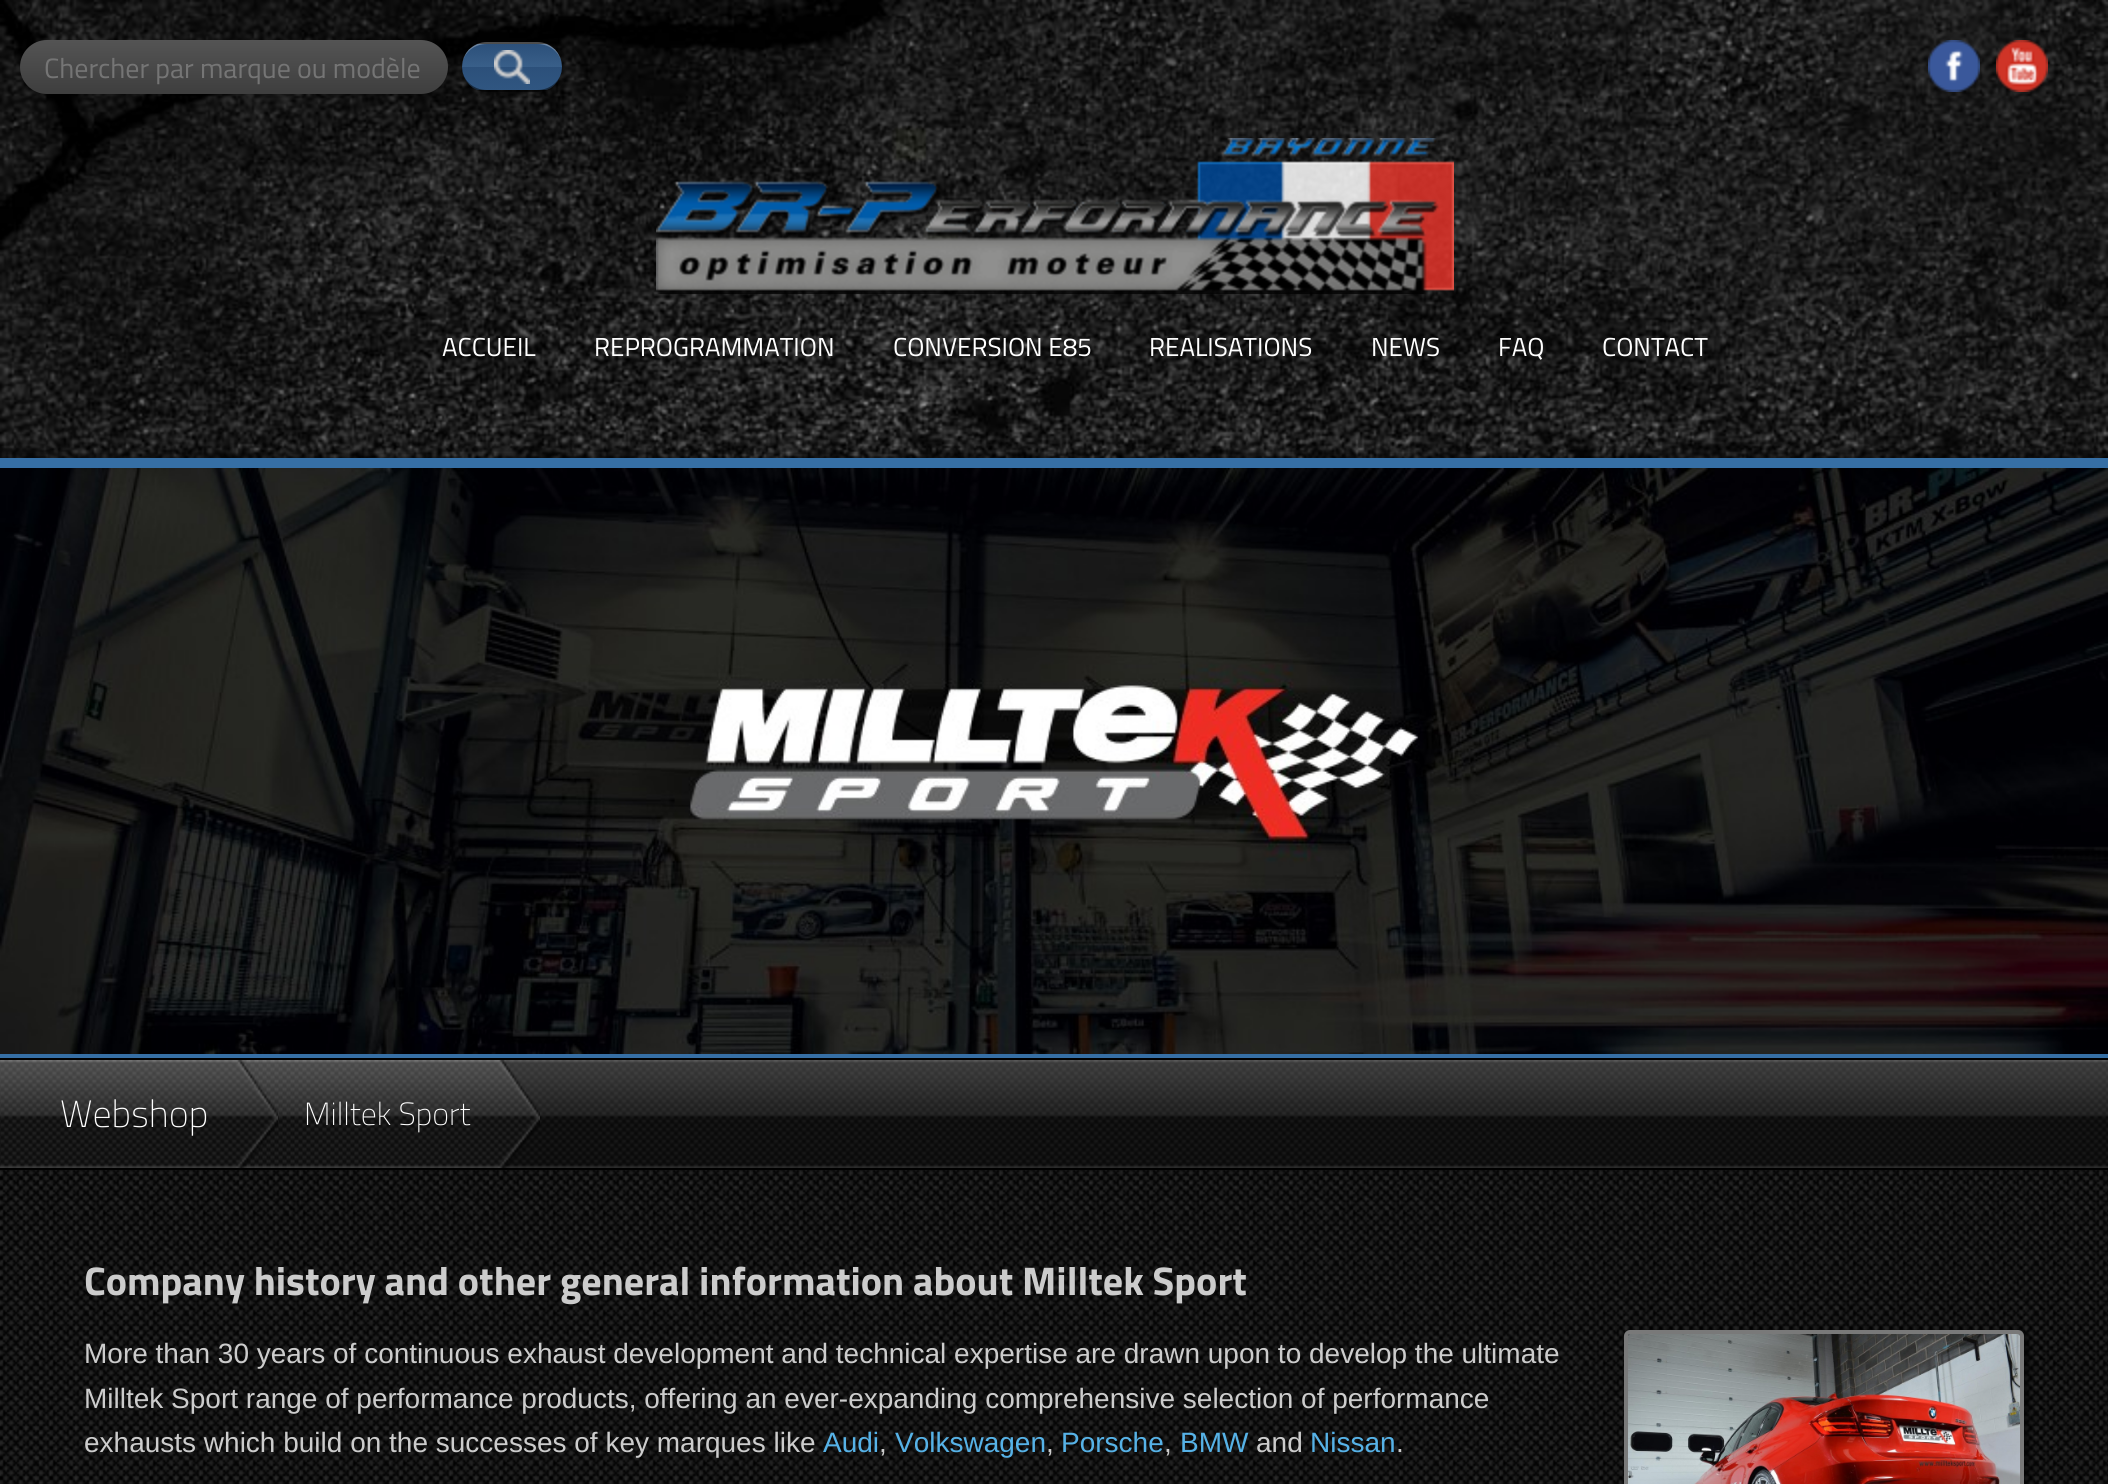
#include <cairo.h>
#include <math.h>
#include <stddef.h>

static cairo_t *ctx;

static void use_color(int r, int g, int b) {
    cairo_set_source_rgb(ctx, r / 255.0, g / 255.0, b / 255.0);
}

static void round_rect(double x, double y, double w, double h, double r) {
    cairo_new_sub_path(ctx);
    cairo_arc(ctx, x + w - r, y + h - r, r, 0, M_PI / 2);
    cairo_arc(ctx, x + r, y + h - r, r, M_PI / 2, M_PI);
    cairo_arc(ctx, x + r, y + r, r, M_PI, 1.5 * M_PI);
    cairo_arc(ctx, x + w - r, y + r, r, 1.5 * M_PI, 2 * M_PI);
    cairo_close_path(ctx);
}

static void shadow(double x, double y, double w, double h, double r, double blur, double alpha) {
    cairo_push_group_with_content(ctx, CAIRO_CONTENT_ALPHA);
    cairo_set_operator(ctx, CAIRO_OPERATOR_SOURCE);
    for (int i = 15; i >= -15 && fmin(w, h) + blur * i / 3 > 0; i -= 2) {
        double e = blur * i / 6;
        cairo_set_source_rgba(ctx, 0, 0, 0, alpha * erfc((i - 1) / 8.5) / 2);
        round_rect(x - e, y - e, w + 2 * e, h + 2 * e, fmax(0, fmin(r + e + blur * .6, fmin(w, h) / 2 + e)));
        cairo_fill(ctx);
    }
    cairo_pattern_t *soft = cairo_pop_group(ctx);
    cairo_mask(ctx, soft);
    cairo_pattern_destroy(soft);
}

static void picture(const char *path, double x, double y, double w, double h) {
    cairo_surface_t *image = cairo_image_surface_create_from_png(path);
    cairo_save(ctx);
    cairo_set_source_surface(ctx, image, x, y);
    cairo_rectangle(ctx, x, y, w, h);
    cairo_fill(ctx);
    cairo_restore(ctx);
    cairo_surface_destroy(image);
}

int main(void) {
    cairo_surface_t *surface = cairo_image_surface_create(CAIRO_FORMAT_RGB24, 2108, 1484);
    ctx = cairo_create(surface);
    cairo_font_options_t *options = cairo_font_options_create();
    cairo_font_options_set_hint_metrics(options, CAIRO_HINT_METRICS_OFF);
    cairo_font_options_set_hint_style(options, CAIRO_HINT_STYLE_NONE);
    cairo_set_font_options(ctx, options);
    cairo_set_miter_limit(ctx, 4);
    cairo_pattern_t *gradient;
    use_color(255, 255, 255);
    cairo_paint(ctx);
    picture("img1.png", 0, 0, 2108, 458);
    gradient = cairo_pattern_create_linear(20, 40, 20, 94);
    cairo_pattern_add_color_stop_rgba(gradient, 0, 0.329, 0.329, 0.329, 1);
    cairo_pattern_add_color_stop_rgba(gradient, 1, 0.243, 0.243, 0.243, 1);
    cairo_set_source(ctx, gradient);
    cairo_pattern_destroy(gradient);
    round_rect(20, 40, 428, 54, 27);
    cairo_fill(ctx);
    cairo_select_font_face(ctx, "Titillium Web", CAIRO_FONT_SLANT_NORMAL, CAIRO_FONT_WEIGHT_NORMAL);
    cairo_set_font_size(ctx, 28);
    use_color(117, 117, 117);
    cairo_move_to(ctx, 44, 78);
    cairo_show_text(ctx, "Chercher par marque ou modèle");
    use_color(0, 0, 0);
    shadow(464, 44, 100, 50, 25, 3, 0.5);
    picture("img2.png", 462, 44, 100, 46);
    cairo_set_source_rgba(ctx, 1, 1, 1, 0.3);
    cairo_new_path(ctx);
    cairo_move_to(ctx, 487, 42);
    cairo_curve_to(ctx, 473, 42, 462, 53, 462, 67);
    cairo_curve_to(ctx, 462, 54, 473, 44, 487, 44);
    cairo_line_to(ctx, 537, 44);
    cairo_curve_to(ctx, 551, 44, 562, 54, 562, 67);
    cairo_curve_to(ctx, 562, 53, 551, 42, 537, 42);
    cairo_close_path(ctx);
    cairo_fill(ctx);
    cairo_set_source_rgba(ctx, 0, 0, 0, 0.5);
    cairo_new_path(ctx);
    cairo_move_to(ctx, 487, 92);
    cairo_line_to(ctx, 537, 92);
    cairo_curve_to(ctx, 551, 92, 562, 81, 562, 67);
    cairo_curve_to(ctx, 562, 80, 551, 90, 537, 90);
    cairo_line_to(ctx, 487, 90);
    cairo_curve_to(ctx, 473, 90, 462, 80, 462, 67);
    cairo_curve_to(ctx, 462, 81, 473, 92, 487, 92);
    cairo_close_path(ctx);
    cairo_fill(ctx);
    picture("img3.png", 1928, 40, 52, 52);
    picture("img4.png", 1996, 40, 52, 52);
    picture("img5.png", 656, 138, 798, 156);
    cairo_set_font_size(ctx, 26);
    use_color(255, 255, 255);
    cairo_move_to(ctx, 442, 356);
    cairo_show_text(ctx, "ACCUEIL");
    cairo_move_to(ctx, 594, 356);
    cairo_show_text(ctx, "REPROGRAMMATION");
    cairo_move_to(ctx, 893, 356);
    cairo_show_text(ctx, "CONVERSION E85");
    cairo_move_to(ctx, 1149, 356);
    cairo_show_text(ctx, "REALISATIONS");
    cairo_move_to(ctx, 1371, 356);
    cairo_show_text(ctx, "NEWS");
    cairo_move_to(ctx, 1498, 356);
    cairo_show_text(ctx, "FAQ");
    cairo_move_to(ctx, 1602, 356);
    cairo_show_text(ctx, "CONTACT");
    use_color(0, 0, 0);
    shadow(0, 458, 2108, 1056, 0, 10, 0.75);
    use_color(0, 0, 0);
    cairo_rectangle(ctx, 0, 1058, 2108, 112);
    cairo_fill(ctx);
    use_color(54, 111, 165);
    cairo_rectangle(ctx, 0, 458, 2108, 10);
    cairo_fill(ctx);
    cairo_rectangle(ctx, 0, 1054, 2108, 4);
    cairo_fill(ctx);
    picture("img6.png", 0, 468, 2108, 586);
    picture("img7.png", 497, 1060, 1611, 108);
    picture("img9.png", 235, 1060, 305, 108);
    picture("img8.png", 0, 1060, 278, 108);
    cairo_select_font_face(ctx, "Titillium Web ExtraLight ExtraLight", CAIRO_FONT_SLANT_NORMAL, CAIRO_FONT_WEIGHT_NORMAL);
    cairo_set_font_size(ctx, 38);
    use_color(255, 255, 255);
    cairo_move_to(ctx, 60, 1127);
    cairo_show_text(ctx, "Webshop");
    cairo_set_font_size(ctx, 32);
    cairo_move_to(ctx, 304, 1125);
    cairo_show_text(ctx, "Milltek Sport");
    picture("img10.png", 0, 1170, 2108, 314);
    cairo_select_font_face(ctx, "Titillium Web", CAIRO_FONT_SLANT_NORMAL, CAIRO_FONT_WEIGHT_BOLD);
    cairo_set_font_size(ctx, 40);
    use_color(204, 204, 204);
    cairo_move_to(ctx, 84, 1295);
    cairo_show_text(ctx, "Company history and other general information about Milltek Sport");
    cairo_select_font_face(ctx, "Liberation Sans", CAIRO_FONT_SLANT_NORMAL, CAIRO_FONT_WEIGHT_NORMAL);
    cairo_set_font_size(ctx, 28);
    cairo_move_to(ctx, 84, 1363);
    cairo_show_text(ctx, "More than 30 years of continuous exhaust development and technical expertise are drawn upon to develop the ultimate");
    use_color(0, 0, 0);
    shadow(1628, 1334, 400, 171, 6, 5, 0.75);
    round_rect(1626, 1332, 396, 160, 4);
    use_color(121, 121, 121);
    cairo_set_line_width(ctx, 4);
    cairo_stroke(ctx);
    picture("img11.png", 1628, 1334, 392, 150);
    use_color(204, 204, 204);
    cairo_move_to(ctx, 84, 1408);
    cairo_show_text(ctx, "Milltek Sport range of performance products, offering an ever-expanding comprehensive selection of performance");
    cairo_move_to(ctx, 84, 1452);
    cairo_show_text(ctx, "exhausts which build on the successes of key marques like");
    use_color(86, 178, 231);
    cairo_move_to(ctx, 823, 1452);
    cairo_show_text(ctx, "Audi");
    use_color(204, 204, 204);
    cairo_move_to(ctx, 879, 1452);
    cairo_show_text(ctx, ",");
    use_color(86, 178, 231);
    cairo_move_to(ctx, 895, 1452);
    cairo_show_text(ctx, "Volkswagen");
    use_color(204, 204, 204);
    cairo_move_to(ctx, 1046, 1452);
    cairo_show_text(ctx, ",");
    use_color(86, 178, 231);
    cairo_move_to(ctx, 1061, 1452);
    cairo_show_text(ctx, "Porsche");
    use_color(204, 204, 204);
    cairo_move_to(ctx, 1164, 1452);
    cairo_show_text(ctx, ",");
    use_color(86, 178, 231);
    cairo_move_to(ctx, 1180, 1452);
    cairo_show_text(ctx, "BMW");
    use_color(204, 204, 204);
    cairo_move_to(ctx, 1256, 1452);
    cairo_show_text(ctx, "and");
    use_color(86, 178, 231);
    cairo_move_to(ctx, 1310, 1452);
    cairo_show_text(ctx, "Nissan");
    use_color(204, 204, 204);
    cairo_move_to(ctx, 1396, 1452);
    cairo_show_text(ctx, ".");
    cairo_surface_write_to_png(surface, "result.png");
    cairo_font_options_destroy(options);
    cairo_destroy(ctx);
    cairo_surface_destroy(surface);
    return 0;
}
